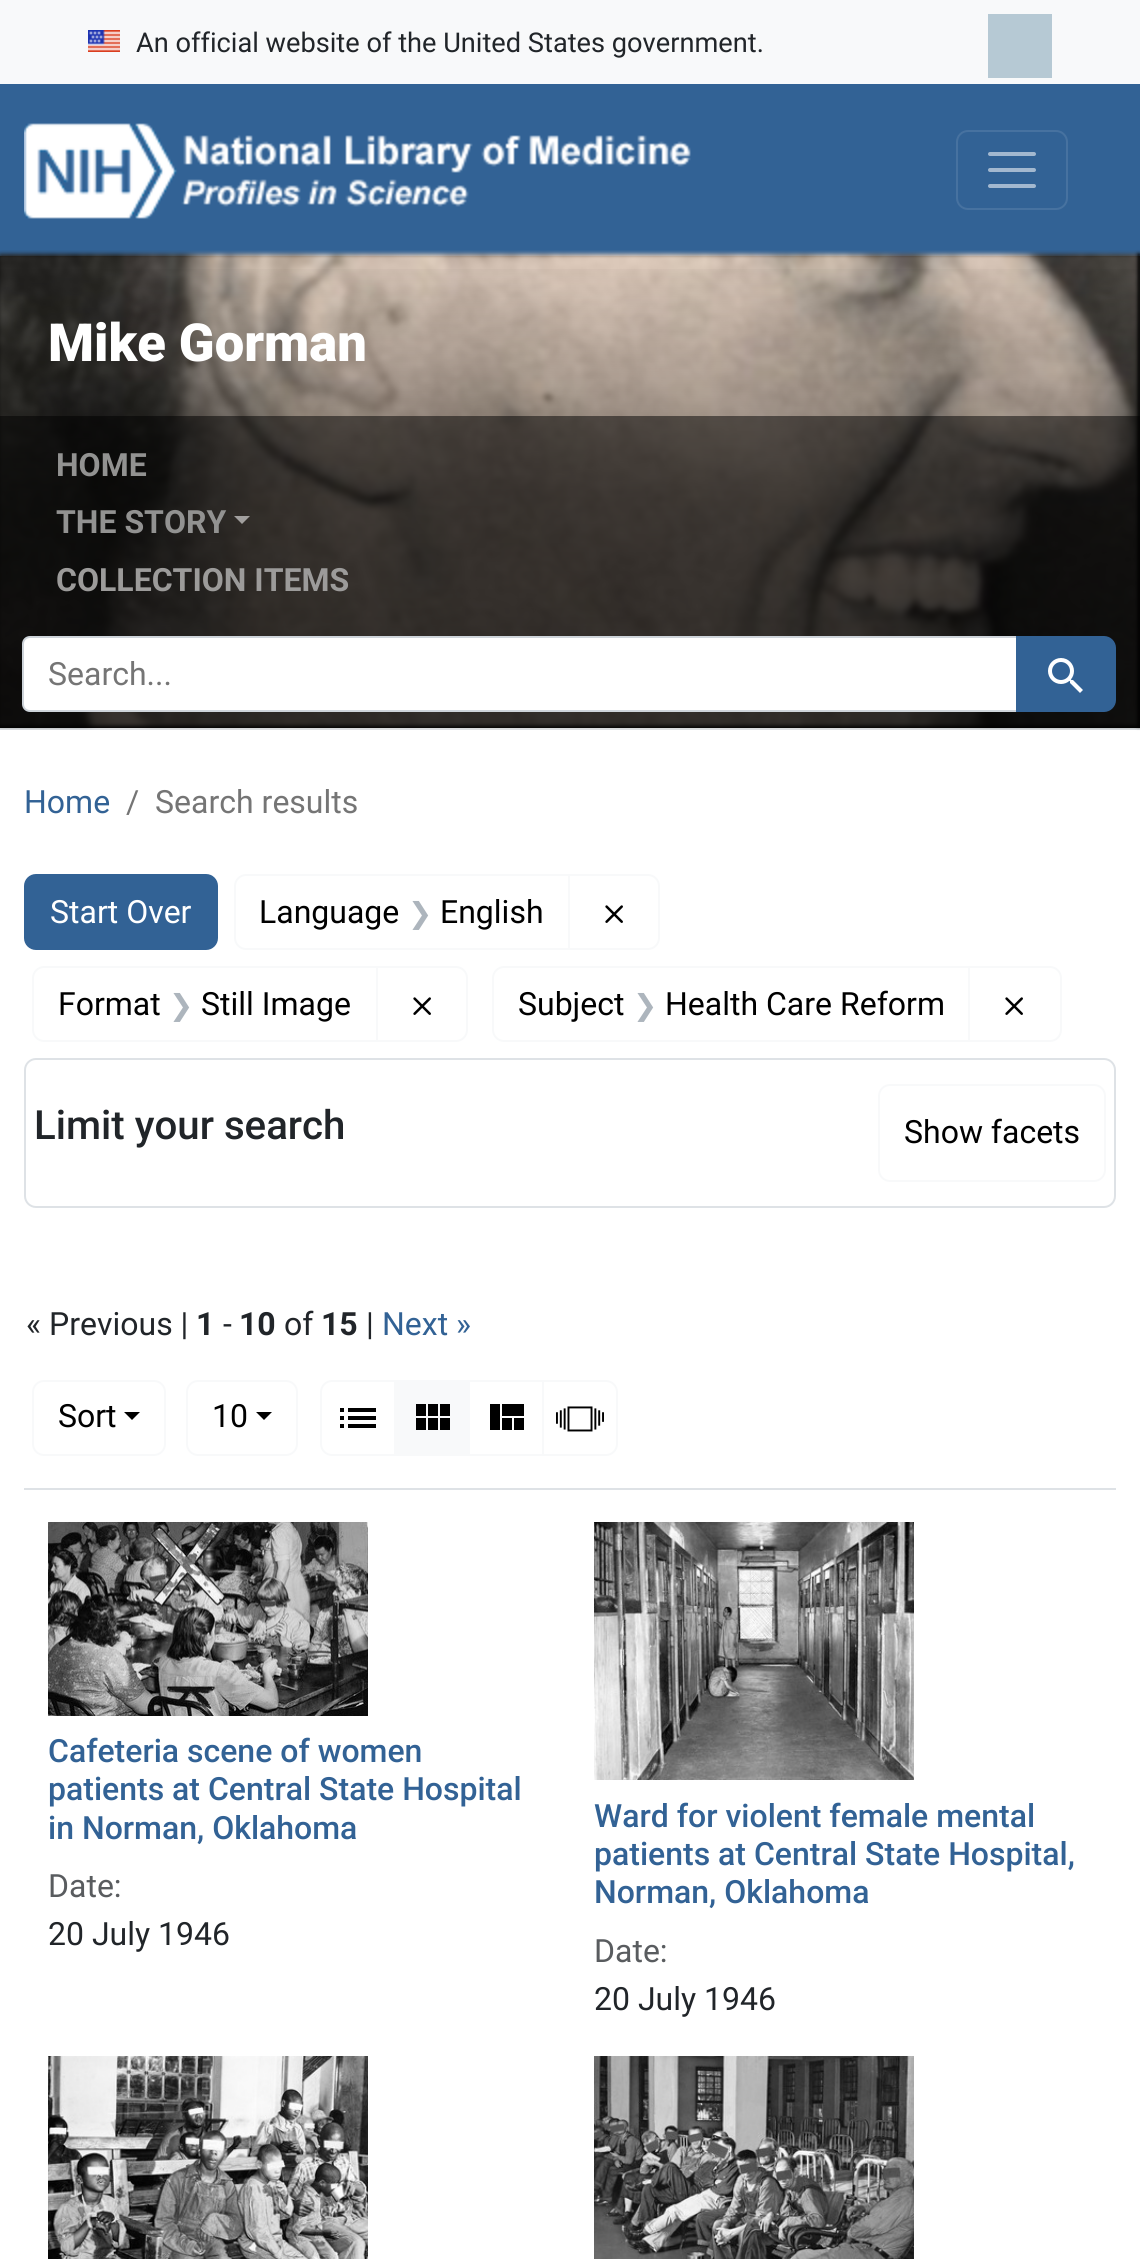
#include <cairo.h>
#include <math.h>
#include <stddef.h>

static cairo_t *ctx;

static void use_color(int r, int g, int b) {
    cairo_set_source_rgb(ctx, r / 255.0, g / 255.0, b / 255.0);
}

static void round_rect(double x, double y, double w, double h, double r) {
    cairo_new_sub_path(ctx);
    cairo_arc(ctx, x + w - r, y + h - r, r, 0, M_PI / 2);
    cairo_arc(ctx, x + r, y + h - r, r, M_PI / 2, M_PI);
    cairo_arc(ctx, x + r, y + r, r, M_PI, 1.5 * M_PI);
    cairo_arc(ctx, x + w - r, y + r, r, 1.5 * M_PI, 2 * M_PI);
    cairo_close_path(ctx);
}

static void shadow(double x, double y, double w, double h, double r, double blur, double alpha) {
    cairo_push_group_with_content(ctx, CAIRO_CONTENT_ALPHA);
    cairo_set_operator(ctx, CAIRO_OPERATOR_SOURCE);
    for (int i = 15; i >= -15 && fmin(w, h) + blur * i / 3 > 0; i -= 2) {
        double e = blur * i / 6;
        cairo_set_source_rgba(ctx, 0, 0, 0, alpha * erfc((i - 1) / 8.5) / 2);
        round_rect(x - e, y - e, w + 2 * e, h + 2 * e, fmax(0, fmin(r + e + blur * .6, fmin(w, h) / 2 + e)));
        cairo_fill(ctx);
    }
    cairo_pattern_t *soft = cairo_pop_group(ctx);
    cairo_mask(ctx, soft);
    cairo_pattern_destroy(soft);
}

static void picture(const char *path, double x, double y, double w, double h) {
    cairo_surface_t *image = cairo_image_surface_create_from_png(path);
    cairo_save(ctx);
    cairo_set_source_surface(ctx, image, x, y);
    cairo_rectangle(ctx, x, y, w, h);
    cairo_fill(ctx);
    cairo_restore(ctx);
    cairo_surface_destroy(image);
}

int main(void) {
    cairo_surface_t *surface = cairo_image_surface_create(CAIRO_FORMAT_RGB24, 1140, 2259);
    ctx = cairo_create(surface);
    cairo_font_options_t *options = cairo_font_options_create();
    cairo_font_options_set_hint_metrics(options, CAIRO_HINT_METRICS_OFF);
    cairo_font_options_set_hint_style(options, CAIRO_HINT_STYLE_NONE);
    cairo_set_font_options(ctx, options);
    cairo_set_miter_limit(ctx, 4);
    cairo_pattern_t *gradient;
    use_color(255, 255, 255);
    cairo_paint(ctx);
    use_color(248, 249, 250);
    cairo_rectangle(ctx, 0, 0, 1140, 84);
    cairo_fill(ctx);
    picture("img1.png", 88, 30, 32, 22);
    cairo_select_font_face(ctx, "Roboto", CAIRO_FONT_SLANT_NORMAL, CAIRO_FONT_WEIGHT_NORMAL);
    cairo_set_font_size(ctx, 27.2);
    use_color(33, 37, 41);
    cairo_move_to(ctx, 136, 52);
    cairo_show_text(ctx, "An official website of the United States government.");
    use_color(182, 201, 212);
    cairo_rectangle(ctx, 988, 14, 64, 64);
    cairo_fill(ctx);
    use_color(50, 98, 149);
    cairo_rectangle(ctx, 0, 84, 1140, 172);
    cairo_fill(ctx);
    picture("img2.png", 24, 123, 667, 96);
    round_rect(957, 131, 110, 78, 11);
    use_color(71, 114, 160);
    cairo_stroke(ctx);
    cairo_new_path(ctx);
    cairo_move_to(ctx, 990, 154);
    cairo_line_to(ctx, 1034, 154);
    cairo_move_to(ctx, 990, 170);
    cairo_line_to(ctx, 1034, 170);
    cairo_move_to(ctx, 990, 186);
    cairo_line_to(ctx, 1034, 186);
    use_color(163, 184, 207);
    cairo_set_line_width(ctx, 4);
    cairo_set_line_cap(ctx, CAIRO_LINE_CAP_ROUND);
    cairo_stroke(ctx);
    use_color(0, 0, 0);
    cairo_rectangle(ctx, 0, 256, 1140, 472);
    cairo_fill(ctx);
    use_color(222, 226, 230);
    cairo_rectangle(ctx, 0, 728, 1140, 2);
    cairo_fill(ctx);
    picture("img3.png", 0, 250, 1140, 480);
    use_color(0, 0, 0);
    shadow(1138, 254, 2, 472, 0, 2, 1);
    gradient = cairo_pattern_create_linear(570, 256, 570, 728);
    cairo_pattern_add_color_stop_rgba(gradient, 0, 0, 0, 0, 0);
    cairo_pattern_add_color_stop_rgba(gradient, 0.5, 0, 0, 0, 0.4);
    cairo_pattern_add_color_stop_rgba(gradient, 1, 0, 0, 0, 0.5);
    cairo_set_source(ctx, gradient);
    cairo_pattern_destroy(gradient);
    cairo_rectangle(ctx, 0, 269, 1140, 459);
    cairo_fill(ctx);
    cairo_select_font_face(ctx, "Roboto Black", CAIRO_FONT_SLANT_NORMAL, CAIRO_FONT_WEIGHT_NORMAL);
    cairo_set_font_size(ctx, 52.5);
    use_color(255, 255, 255);
    cairo_move_to(ctx, 48, 361);
    cairo_show_text(ctx, "Mike Gorman");
    cairo_set_source_rgba(ctx, 0, 0, 0, 0.5);
    cairo_rectangle(ctx, 0, 416, 1140, 312);
    cairo_fill(ctx);
    cairo_select_font_face(ctx, "Roboto", CAIRO_FONT_SLANT_NORMAL, CAIRO_FONT_WEIGHT_BOLD);
    cairo_set_font_size(ctx, 32);
    use_color(146, 146, 145);
    cairo_move_to(ctx, 56, 476);
    cairo_show_text(ctx, "HOME");
    cairo_move_to(ctx, 56, 533);
    cairo_show_text(ctx, "THE STORY");
    cairo_set_source_rgba(ctx, 1, 1, 1, 0.55);
    cairo_new_path(ctx);
    cairo_move_to(ctx, 234, 516);
    cairo_line_to(ctx, 250, 516);
    cairo_line_to(ctx, 242, 524);
    cairo_close_path(ctx);
    cairo_fill(ctx);
    use_color(156, 155, 154);
    cairo_move_to(ctx, 56, 591);
    cairo_show_text(ctx, "COLLECTION ITEMS");
    use_color(255, 255, 255);
    cairo_new_path(ctx);
    cairo_move_to(ctx, 30, 637);
    cairo_line_to(ctx, 1017, 637);
    cairo_line_to(ctx, 1017, 711);
    cairo_line_to(ctx, 30, 711);
    cairo_curve_to(ctx, 26, 711, 23, 708, 23, 704);
    cairo_line_to(ctx, 23, 644);
    cairo_curve_to(ctx, 23, 640, 26, 637, 30, 637);
    cairo_close_path(ctx);
    cairo_fill_preserve(ctx);
    use_color(206, 212, 218);
    cairo_set_line_width(ctx, 2);
    cairo_set_line_cap(ctx, CAIRO_LINE_CAP_BUTT);
    cairo_stroke(ctx);
    cairo_select_font_face(ctx, "Roboto", CAIRO_FONT_SLANT_NORMAL, CAIRO_FONT_WEIGHT_NORMAL);
    use_color(117, 117, 117);
    cairo_move_to(ctx, 48, 685);
    cairo_show_text(ctx, "Search...");
    use_color(50, 98, 149);
    cairo_new_path(ctx);
    cairo_move_to(ctx, 1017, 637);
    cairo_line_to(ctx, 1104, 637);
    cairo_curve_to(ctx, 1110, 637, 1115, 642, 1115, 648);
    cairo_line_to(ctx, 1115, 700);
    cairo_curve_to(ctx, 1115, 706, 1110, 711, 1104, 711);
    cairo_line_to(ctx, 1017, 711);
    cairo_close_path(ctx);
    cairo_fill_preserve(ctx);
    cairo_stroke(ctx);
    picture("img4.png", 1048, 658, 35, 35);
    cairo_move_to(ctx, 24, 813);
    cairo_show_text(ctx, "Home");
    use_color(117, 117, 117);
    cairo_move_to(ctx, 126, 813);
    cairo_show_text(ctx, "/");
    cairo_move_to(ctx, 155, 813);
    cairo_show_text(ctx, "Search results");
    use_color(50, 98, 149);
    round_rect(25, 875, 192, 74, 11);
    cairo_fill_preserve(ctx);
    cairo_stroke(ctx);
    use_color(255, 255, 255);
    cairo_move_to(ctx, 50, 923);
    cairo_show_text(ctx, "Start Over");
    cairo_new_path(ctx);
    cairo_move_to(ctx, 246, 875);
    cairo_line_to(ctx, 569, 875);
    cairo_line_to(ctx, 569, 949);
    cairo_line_to(ctx, 246, 949);
    cairo_curve_to(ctx, 240, 949, 235, 944, 235, 938);
    cairo_line_to(ctx, 235, 886);
    cairo_curve_to(ctx, 235, 880, 240, 875, 246, 875);
    cairo_close_path(ctx);
    use_color(248, 249, 250);
    cairo_stroke(ctx);
    use_color(0, 0, 0);
    cairo_move_to(ctx, 259, 923);
    cairo_show_text(ctx, "Language");
    cairo_select_font_face(ctx, "DejaVu Sans", CAIRO_FONT_SLANT_NORMAL, CAIRO_FONT_WEIGHT_NORMAL);
    cairo_set_font_size(ctx, 29);
    use_color(173, 181, 189);
    cairo_move_to(ctx, 408, 923);
    cairo_show_text(ctx, "❯");
    cairo_select_font_face(ctx, "Roboto", CAIRO_FONT_SLANT_NORMAL, CAIRO_FONT_WEIGHT_NORMAL);
    cairo_set_font_size(ctx, 32);
    use_color(0, 0, 0);
    cairo_move_to(ctx, 440, 923);
    cairo_show_text(ctx, "English");
    cairo_new_path(ctx);
    cairo_move_to(ctx, 569, 875);
    cairo_line_to(ctx, 648, 875);
    cairo_curve_to(ctx, 654, 875, 659, 880, 659, 886);
    cairo_line_to(ctx, 659, 938);
    cairo_curve_to(ctx, 659, 944, 654, 949, 648, 949);
    cairo_line_to(ctx, 569, 949);
    cairo_close_path(ctx);
    use_color(248, 249, 250);
    cairo_stroke(ctx);
    picture("img5.png", 605, 905, 18, 18);
    cairo_new_path(ctx);
    cairo_move_to(ctx, 44, 967);
    cairo_line_to(ctx, 377, 967);
    cairo_line_to(ctx, 377, 1041);
    cairo_line_to(ctx, 44, 1041);
    cairo_curve_to(ctx, 38, 1041, 33, 1036, 33, 1030);
    cairo_line_to(ctx, 33, 978);
    cairo_curve_to(ctx, 33, 972, 38, 967, 44, 967);
    cairo_close_path(ctx);
    cairo_stroke(ctx);
    use_color(0, 0, 0);
    cairo_move_to(ctx, 58, 1015);
    cairo_show_text(ctx, "Format");
    cairo_select_font_face(ctx, "DejaVu Sans", CAIRO_FONT_SLANT_NORMAL, CAIRO_FONT_WEIGHT_NORMAL);
    cairo_set_font_size(ctx, 29);
    use_color(173, 181, 189);
    cairo_move_to(ctx, 169, 1015);
    cairo_show_text(ctx, "❯");
    cairo_select_font_face(ctx, "Roboto", CAIRO_FONT_SLANT_NORMAL, CAIRO_FONT_WEIGHT_NORMAL);
    cairo_set_font_size(ctx, 32);
    use_color(0, 0, 0);
    cairo_move_to(ctx, 201, 1015);
    cairo_show_text(ctx, "Still Image");
    cairo_new_path(ctx);
    cairo_move_to(ctx, 377, 967);
    cairo_line_to(ctx, 456, 967);
    cairo_curve_to(ctx, 462, 967, 467, 972, 467, 978);
    cairo_line_to(ctx, 467, 1030);
    cairo_curve_to(ctx, 467, 1036, 462, 1041, 456, 1041);
    cairo_line_to(ctx, 377, 1041);
    cairo_close_path(ctx);
    use_color(248, 249, 250);
    cairo_stroke(ctx);
    picture("img5.png", 413, 997, 18, 18);
    cairo_new_path(ctx);
    cairo_move_to(ctx, 504, 967);
    cairo_line_to(ctx, 969, 967);
    cairo_line_to(ctx, 969, 1041);
    cairo_line_to(ctx, 504, 1041);
    cairo_curve_to(ctx, 498, 1041, 493, 1036, 493, 1030);
    cairo_line_to(ctx, 493, 978);
    cairo_curve_to(ctx, 493, 972, 498, 967, 504, 967);
    cairo_close_path(ctx);
    cairo_stroke(ctx);
    use_color(0, 0, 0);
    cairo_move_to(ctx, 518, 1015);
    cairo_show_text(ctx, "Subject");
    cairo_select_font_face(ctx, "DejaVu Sans", CAIRO_FONT_SLANT_NORMAL, CAIRO_FONT_WEIGHT_NORMAL);
    cairo_set_font_size(ctx, 29);
    use_color(173, 181, 189);
    cairo_move_to(ctx, 633, 1015);
    cairo_show_text(ctx, "❯");
    cairo_select_font_face(ctx, "Roboto", CAIRO_FONT_SLANT_NORMAL, CAIRO_FONT_WEIGHT_NORMAL);
    cairo_set_font_size(ctx, 32);
    use_color(0, 0, 0);
    cairo_move_to(ctx, 665, 1015);
    cairo_show_text(ctx, "Health Care Reform");
    cairo_new_path(ctx);
    cairo_move_to(ctx, 969, 967);
    cairo_line_to(ctx, 1050, 967);
    cairo_curve_to(ctx, 1056, 967, 1061, 972, 1061, 978);
    cairo_line_to(ctx, 1061, 1030);
    cairo_curve_to(ctx, 1061, 1036, 1056, 1041, 1050, 1041);
    cairo_line_to(ctx, 969, 1041);
    cairo_close_path(ctx);
    use_color(248, 249, 250);
    cairo_stroke(ctx);
    picture("img5.png", 1005, 997, 18, 18);
    round_rect(25, 1059, 1090, 148, 11);
    use_color(222, 226, 230);
    cairo_stroke(ctx);
    cairo_select_font_face(ctx, "Roboto Medium", CAIRO_FONT_SLANT_NORMAL, CAIRO_FONT_WEIGHT_NORMAL);
    cairo_set_font_size(ctx, 40.25);
    use_color(33, 37, 41);
    cairo_move_to(ctx, 34, 1139);
    cairo_show_text(ctx, "Limit your search");
    round_rect(879, 1085, 226, 96, 11);
    use_color(248, 249, 250);
    cairo_stroke(ctx);
    cairo_select_font_face(ctx, "Roboto", CAIRO_FONT_SLANT_NORMAL, CAIRO_FONT_WEIGHT_NORMAL);
    cairo_set_font_size(ctx, 32);
    use_color(0, 0, 0);
    cairo_move_to(ctx, 904, 1143);
    cairo_show_text(ctx, "Show facets");
    use_color(222, 226, 230);
    cairo_rectangle(ctx, 24, 1488, 1092, 2);
    cairo_fill(ctx);
    use_color(33, 37, 41);
    cairo_move_to(ctx, 26, 1335);
    cairo_show_text(ctx, "« Previous |");
    cairo_select_font_face(ctx, "Roboto", CAIRO_FONT_SLANT_NORMAL, CAIRO_FONT_WEIGHT_BOLD);
    cairo_move_to(ctx, 196, 1335);
    cairo_show_text(ctx, "1");
    cairo_select_font_face(ctx, "Roboto", CAIRO_FONT_SLANT_NORMAL, CAIRO_FONT_WEIGHT_NORMAL);
    cairo_move_to(ctx, 223, 1335);
    cairo_show_text(ctx, "-");
    cairo_select_font_face(ctx, "Roboto", CAIRO_FONT_SLANT_NORMAL, CAIRO_FONT_WEIGHT_BOLD);
    cairo_move_to(ctx, 239, 1335);
    cairo_show_text(ctx, "10");
    cairo_select_font_face(ctx, "Roboto", CAIRO_FONT_SLANT_NORMAL, CAIRO_FONT_WEIGHT_NORMAL);
    cairo_move_to(ctx, 284, 1335);
    cairo_show_text(ctx, "of");
    cairo_select_font_face(ctx, "Roboto", CAIRO_FONT_SLANT_NORMAL, CAIRO_FONT_WEIGHT_BOLD);
    cairo_move_to(ctx, 321, 1335);
    cairo_show_text(ctx, "15");
    cairo_select_font_face(ctx, "Roboto", CAIRO_FONT_SLANT_NORMAL, CAIRO_FONT_WEIGHT_NORMAL);
    cairo_move_to(ctx, 366, 1335);
    cairo_show_text(ctx, "|");
    use_color(50, 98, 149);
    cairo_move_to(ctx, 382, 1335);
    cairo_show_text(ctx, "Next »");
    round_rect(33, 1381, 132, 74, 11);
    use_color(248, 249, 250);
    cairo_stroke(ctx);
    use_color(0, 0, 0);
    cairo_move_to(ctx, 58, 1427);
    cairo_show_text(ctx, "Sort");
    cairo_new_path(ctx);
    cairo_move_to(ctx, 124, 1412);
    cairo_line_to(ctx, 140, 1412);
    cairo_line_to(ctx, 132, 1420);
    cairo_close_path(ctx);
    cairo_fill(ctx);
    round_rect(187, 1381, 110, 74, 11);
    use_color(248, 249, 250);
    cairo_stroke(ctx);
    use_color(0, 0, 0);
    cairo_move_to(ctx, 212, 1427);
    cairo_show_text(ctx, "10");
    cairo_new_path(ctx);
    cairo_move_to(ctx, 256, 1412);
    cairo_line_to(ctx, 272, 1412);
    cairo_line_to(ctx, 264, 1420);
    cairo_close_path(ctx);
    cairo_fill(ctx);
    cairo_new_path(ctx);
    cairo_move_to(ctx, 332, 1381);
    cairo_line_to(ctx, 395, 1381);
    cairo_line_to(ctx, 395, 1455);
    cairo_line_to(ctx, 332, 1455);
    cairo_curve_to(ctx, 326, 1455, 321, 1450, 321, 1444);
    cairo_line_to(ctx, 321, 1392);
    cairo_curve_to(ctx, 321, 1386, 326, 1381, 332, 1381);
    cairo_close_path(ctx);
    use_color(248, 249, 250);
    cairo_stroke(ctx);
    picture("img6.png", 340, 1408, 36, 20);
    cairo_rectangle(ctx, 396, 1380, 72, 76);
    cairo_fill(ctx);
    picture("img7.png", 416, 1404, 34, 26);
    cairo_rectangle(ctx, 469, 1381, 74, 74);
    cairo_stroke(ctx);
    picture("img8.png", 490, 1404, 34, 26);
    cairo_new_path(ctx);
    cairo_move_to(ctx, 543, 1381);
    cairo_line_to(ctx, 606, 1381);
    cairo_curve_to(ctx, 612, 1381, 617, 1386, 617, 1392);
    cairo_line_to(ctx, 617, 1444);
    cairo_curve_to(ctx, 617, 1450, 612, 1455, 606, 1455);
    cairo_line_to(ctx, 543, 1455);
    cairo_close_path(ctx);
    cairo_stroke(ctx);
    picture("img9.png", 556, 1406, 48, 26);
    picture("img10.png", 48, 1522, 320, 194);
    cairo_select_font_face(ctx, "Roboto Medium", CAIRO_FONT_SLANT_NORMAL, CAIRO_FONT_WEIGHT_NORMAL);
    use_color(50, 98, 149);
    cairo_move_to(ctx, 48, 1762);
    cairo_show_text(ctx, "Cafeteria scene of women");
    cairo_move_to(ctx, 48, 1800);
    cairo_show_text(ctx, "patients at Central State Hospital");
    cairo_move_to(ctx, 48, 1839);
    cairo_show_text(ctx, "in Norman, Oklahoma");
    cairo_select_font_face(ctx, "Roboto", CAIRO_FONT_SLANT_NORMAL, CAIRO_FONT_WEIGHT_NORMAL);
    use_color(89, 92, 95);
    cairo_move_to(ctx, 48, 1897);
    cairo_show_text(ctx, "Date:");
    use_color(33, 37, 41);
    cairo_move_to(ctx, 48, 1945);
    cairo_show_text(ctx, "20 July 1946");
    picture("img11.png", 594, 1522, 320, 258);
    cairo_select_font_face(ctx, "Roboto Medium", CAIRO_FONT_SLANT_NORMAL, CAIRO_FONT_WEIGHT_NORMAL);
    use_color(50, 98, 149);
    cairo_move_to(ctx, 594, 1827);
    cairo_show_text(ctx, "Ward for violent female mental");
    cairo_move_to(ctx, 594, 1865);
    cairo_show_text(ctx, "patients at Central State Hospital,");
    cairo_move_to(ctx, 594, 1903);
    cairo_show_text(ctx, "Norman, Oklahoma");
    cairo_select_font_face(ctx, "Roboto", CAIRO_FONT_SLANT_NORMAL, CAIRO_FONT_WEIGHT_NORMAL);
    use_color(89, 92, 95);
    cairo_move_to(ctx, 594, 1962);
    cairo_show_text(ctx, "Date:");
    use_color(33, 37, 41);
    cairo_move_to(ctx, 594, 2010);
    cairo_show_text(ctx, "20 July 1946");
    picture("img12.png", 48, 2056, 320, 203);
    picture("img13.png", 594, 2056, 320, 203);
    cairo_surface_write_to_png(surface, "result.png");
    cairo_font_options_destroy(options);
    cairo_destroy(ctx);
    cairo_surface_destroy(surface);
    return 0;
}
